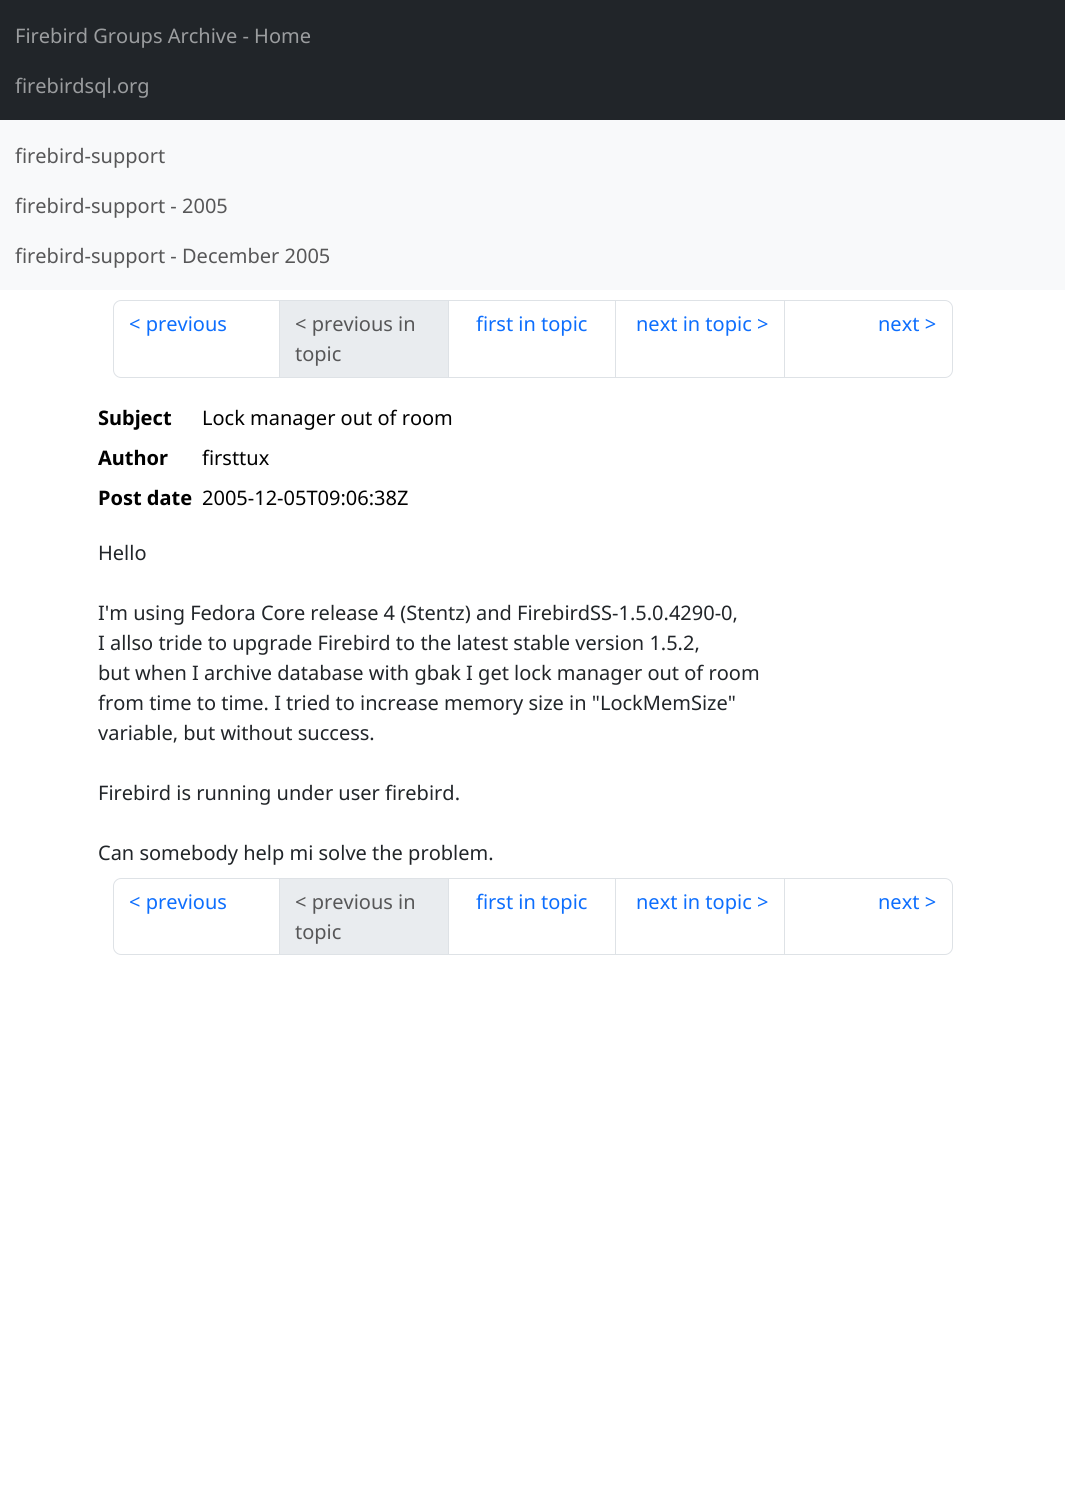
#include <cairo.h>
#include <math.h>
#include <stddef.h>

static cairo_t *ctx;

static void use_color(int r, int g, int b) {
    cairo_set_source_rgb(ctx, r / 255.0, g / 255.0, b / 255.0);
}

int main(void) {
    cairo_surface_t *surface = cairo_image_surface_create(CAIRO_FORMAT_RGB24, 1065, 1500);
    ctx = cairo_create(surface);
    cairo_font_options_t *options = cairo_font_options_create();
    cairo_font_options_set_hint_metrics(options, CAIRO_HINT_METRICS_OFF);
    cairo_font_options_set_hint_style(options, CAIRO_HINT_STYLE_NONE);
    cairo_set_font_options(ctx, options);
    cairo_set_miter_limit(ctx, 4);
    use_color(255, 255, 255);
    cairo_paint(ctx);
    use_color(33, 37, 41);
    cairo_rectangle(ctx, 0, 0, 1065, 120);
    cairo_fill(ctx);
    cairo_select_font_face(ctx, "Noto Sans", CAIRO_FONT_SLANT_NORMAL, CAIRO_FONT_WEIGHT_NORMAL);
    cairo_set_font_size(ctx, 20);
    use_color(155, 157, 159);
    cairo_move_to(ctx, 15, 43);
    cairo_show_text(ctx, "Firebird Groups Archive - Home");
    cairo_move_to(ctx, 15, 93);
    cairo_show_text(ctx, "firebirdsql.org");
    use_color(248, 249, 250);
    cairo_rectangle(ctx, 0, 120, 1065, 170);
    cairo_fill(ctx);
    use_color(87, 87, 88);
    cairo_move_to(ctx, 15, 163);
    cairo_show_text(ctx, "firebird-support");
    cairo_move_to(ctx, 15, 213);
    cairo_show_text(ctx, "firebird-support - 2005");
    cairo_move_to(ctx, 15, 263);
    cairo_show_text(ctx, "firebird-support - December 2005");
    cairo_new_path(ctx);
    cairo_move_to(ctx, 121, 300.5);
    cairo_line_to(ctx, 279.5, 300.5);
    cairo_line_to(ctx, 279.5, 377.5);
    cairo_line_to(ctx, 121, 377.5);
    cairo_curve_to(ctx, 117, 377.5, 113.5, 374, 113.5, 370);
    cairo_line_to(ctx, 113.5, 308);
    cairo_curve_to(ctx, 113.5, 304, 117, 300.5, 121, 300.5);
    cairo_close_path(ctx);
    use_color(222, 226, 230);
    cairo_set_line_width(ctx, 1);
    cairo_stroke(ctx);
    use_color(13, 110, 253);
    cairo_move_to(ctx, 129, 331);
    cairo_show_text(ctx, "< previous");
    use_color(233, 236, 239);
    cairo_rectangle(ctx, 279.5, 300.5, 169, 77);
    cairo_fill_preserve(ctx);
    use_color(222, 226, 230);
    cairo_stroke(ctx);
    use_color(87, 87, 88);
    cairo_move_to(ctx, 295, 331);
    cairo_show_text(ctx, "< previous in");
    cairo_move_to(ctx, 295, 361);
    cairo_show_text(ctx, "topic");
    cairo_rectangle(ctx, 448.5, 300.5, 167, 77);
    use_color(222, 226, 230);
    cairo_stroke(ctx);
    use_color(13, 110, 253);
    cairo_move_to(ctx, 476, 331);
    cairo_show_text(ctx, "first in topic");
    cairo_rectangle(ctx, 615.5, 300.5, 169, 77);
    use_color(222, 226, 230);
    cairo_stroke(ctx);
    use_color(13, 110, 253);
    cairo_move_to(ctx, 636, 331);
    cairo_show_text(ctx, "next in topic >");
    use_color(255, 255, 255);
    cairo_new_path(ctx);
    cairo_move_to(ctx, 784.5, 300.5);
    cairo_line_to(ctx, 945, 300.5);
    cairo_curve_to(ctx, 949, 300.5, 952.5, 304, 952.5, 308);
    cairo_line_to(ctx, 952.5, 370);
    cairo_curve_to(ctx, 952.5, 374, 949, 377.5, 945, 377.5);
    cairo_line_to(ctx, 784.5, 377.5);
    cairo_close_path(ctx);
    cairo_fill_preserve(ctx);
    use_color(222, 226, 230);
    cairo_stroke(ctx);
    use_color(13, 110, 253);
    cairo_move_to(ctx, 878, 331);
    cairo_show_text(ctx, "next >");
    cairo_select_font_face(ctx, "Noto Sans", CAIRO_FONT_SLANT_NORMAL, CAIRO_FONT_WEIGHT_BOLD);
    use_color(0, 0, 0);
    cairo_move_to(ctx, 98, 425);
    cairo_show_text(ctx, "Subject");
    cairo_select_font_face(ctx, "Noto Sans", CAIRO_FONT_SLANT_NORMAL, CAIRO_FONT_WEIGHT_NORMAL);
    cairo_move_to(ctx, 202, 425);
    cairo_show_text(ctx, "Lock manager out of room");
    cairo_select_font_face(ctx, "Noto Sans", CAIRO_FONT_SLANT_NORMAL, CAIRO_FONT_WEIGHT_BOLD);
    cairo_move_to(ctx, 98, 465);
    cairo_show_text(ctx, "Author");
    cairo_select_font_face(ctx, "Noto Sans", CAIRO_FONT_SLANT_NORMAL, CAIRO_FONT_WEIGHT_NORMAL);
    cairo_move_to(ctx, 202, 465);
    cairo_show_text(ctx, "firsttux");
    cairo_select_font_face(ctx, "Noto Sans", CAIRO_FONT_SLANT_NORMAL, CAIRO_FONT_WEIGHT_BOLD);
    cairo_move_to(ctx, 98, 505);
    cairo_show_text(ctx, "Post date");
    cairo_select_font_face(ctx, "Noto Sans", CAIRO_FONT_SLANT_NORMAL, CAIRO_FONT_WEIGHT_NORMAL);
    cairo_move_to(ctx, 202, 505);
    cairo_show_text(ctx, "2005-12-05T09:06:38Z");
    use_color(33, 37, 41);
    cairo_move_to(ctx, 98, 560);
    cairo_show_text(ctx, "Hello");
    cairo_move_to(ctx, 98, 620);
    cairo_show_text(ctx, "I'm using Fedora Core release 4 (Stentz) and FirebirdSS-1.5.0.4290-0,");
    cairo_move_to(ctx, 98, 650);
    cairo_show_text(ctx, "I allso tride to upgrade Firebird to the latest stable version 1.5.2,");
    cairo_move_to(ctx, 98, 680);
    cairo_show_text(ctx, "but when I archive database with gbak I get lock manager out of room");
    cairo_move_to(ctx, 98, 710);
    cairo_show_text(ctx, "from time to time. I tried to increase memory size in \"LockMemSize\"");
    cairo_move_to(ctx, 98, 740);
    cairo_show_text(ctx, "variable, but without success.");
    cairo_move_to(ctx, 98, 800);
    cairo_show_text(ctx, "Firebird is running under user firebird.");
    cairo_move_to(ctx, 98, 860);
    cairo_show_text(ctx, "Can somebody help mi solve the problem.");
    cairo_new_path(ctx);
    cairo_move_to(ctx, 121, 878.5);
    cairo_line_to(ctx, 279.5, 878.5);
    cairo_line_to(ctx, 279.5, 954.5);
    cairo_line_to(ctx, 121, 954.5);
    cairo_curve_to(ctx, 117, 954.5, 113.5, 951, 113.5, 947);
    cairo_line_to(ctx, 113.5, 886);
    cairo_curve_to(ctx, 113.5, 882, 117, 878.5, 121, 878.5);
    cairo_close_path(ctx);
    use_color(222, 226, 230);
    cairo_stroke(ctx);
    use_color(13, 110, 253);
    cairo_move_to(ctx, 129, 909);
    cairo_show_text(ctx, "< previous");
    use_color(233, 236, 239);
    cairo_rectangle(ctx, 279.5, 878.5, 169, 76);
    cairo_fill_preserve(ctx);
    use_color(222, 226, 230);
    cairo_stroke(ctx);
    use_color(87, 87, 88);
    cairo_move_to(ctx, 295, 909);
    cairo_show_text(ctx, "< previous in");
    cairo_move_to(ctx, 295, 939);
    cairo_show_text(ctx, "topic");
    cairo_rectangle(ctx, 448.5, 878.5, 167, 76);
    use_color(222, 226, 230);
    cairo_stroke(ctx);
    use_color(13, 110, 253);
    cairo_move_to(ctx, 476, 909);
    cairo_show_text(ctx, "first in topic");
    cairo_rectangle(ctx, 615.5, 878.5, 169, 76);
    use_color(222, 226, 230);
    cairo_stroke(ctx);
    use_color(13, 110, 253);
    cairo_move_to(ctx, 636, 909);
    cairo_show_text(ctx, "next in topic >");
    use_color(255, 255, 255);
    cairo_new_path(ctx);
    cairo_move_to(ctx, 784.5, 878.5);
    cairo_line_to(ctx, 945, 878.5);
    cairo_curve_to(ctx, 949, 878.5, 952.5, 882, 952.5, 886);
    cairo_line_to(ctx, 952.5, 947);
    cairo_curve_to(ctx, 952.5, 951, 949, 954.5, 945, 954.5);
    cairo_line_to(ctx, 784.5, 954.5);
    cairo_close_path(ctx);
    cairo_fill_preserve(ctx);
    use_color(222, 226, 230);
    cairo_stroke(ctx);
    use_color(13, 110, 253);
    cairo_move_to(ctx, 878, 909);
    cairo_show_text(ctx, "next >");
    cairo_surface_write_to_png(surface, "result.png");
    cairo_font_options_destroy(options);
    cairo_destroy(ctx);
    cairo_surface_destroy(surface);
    return 0;
}
